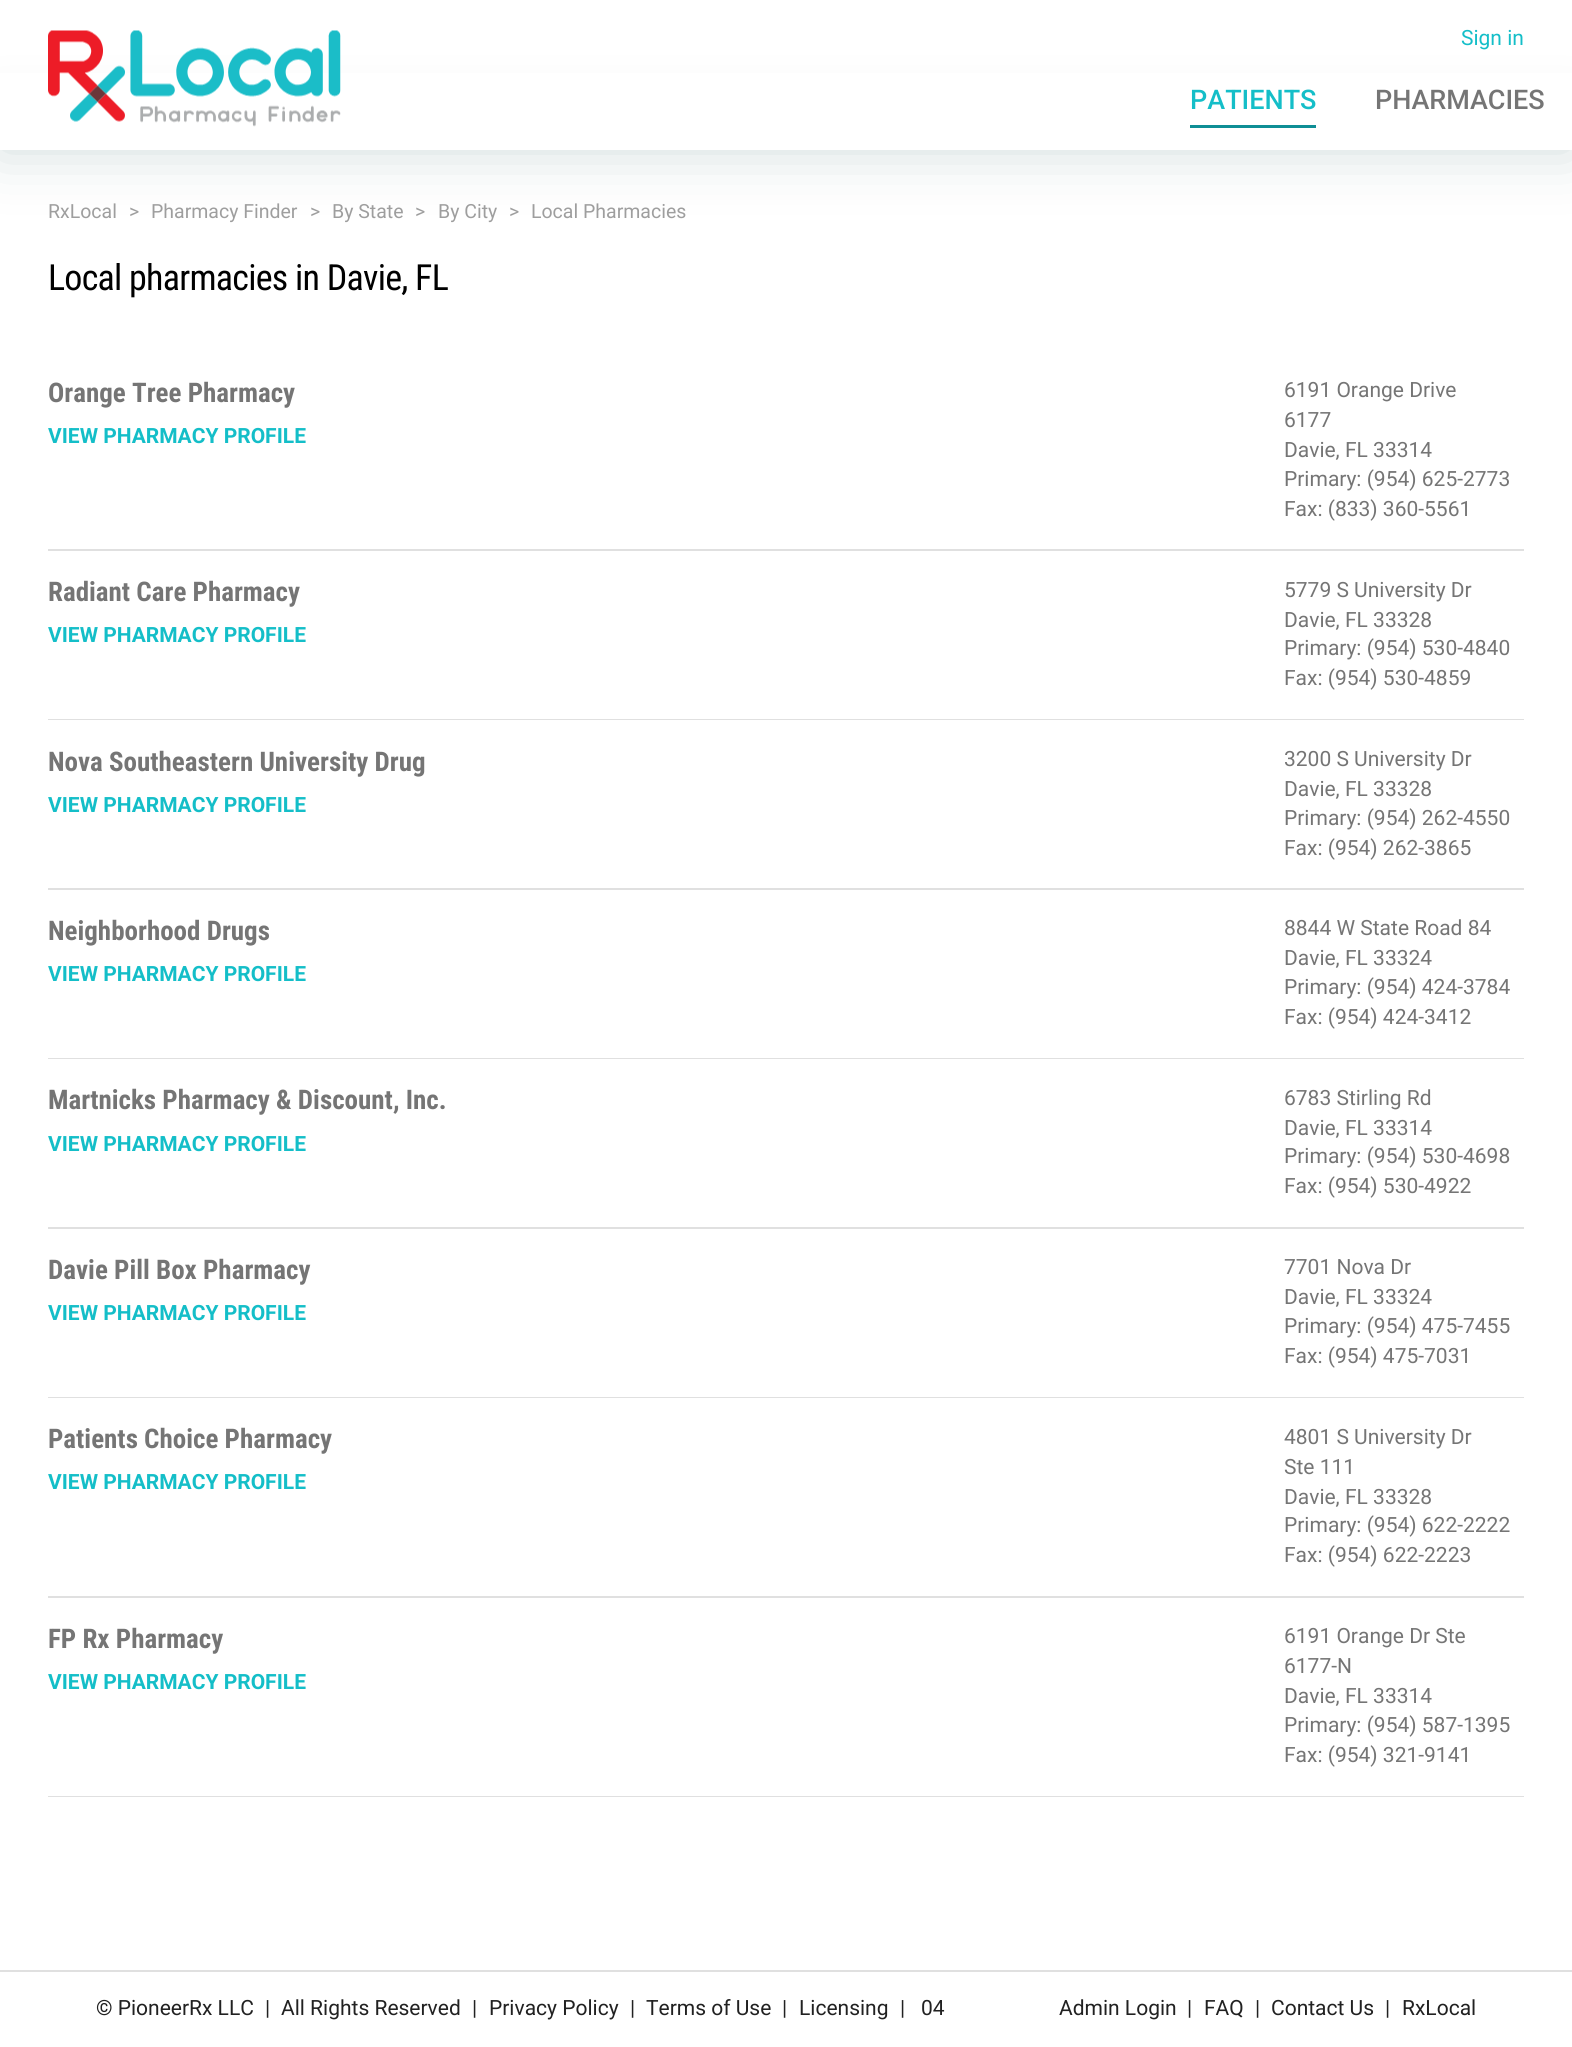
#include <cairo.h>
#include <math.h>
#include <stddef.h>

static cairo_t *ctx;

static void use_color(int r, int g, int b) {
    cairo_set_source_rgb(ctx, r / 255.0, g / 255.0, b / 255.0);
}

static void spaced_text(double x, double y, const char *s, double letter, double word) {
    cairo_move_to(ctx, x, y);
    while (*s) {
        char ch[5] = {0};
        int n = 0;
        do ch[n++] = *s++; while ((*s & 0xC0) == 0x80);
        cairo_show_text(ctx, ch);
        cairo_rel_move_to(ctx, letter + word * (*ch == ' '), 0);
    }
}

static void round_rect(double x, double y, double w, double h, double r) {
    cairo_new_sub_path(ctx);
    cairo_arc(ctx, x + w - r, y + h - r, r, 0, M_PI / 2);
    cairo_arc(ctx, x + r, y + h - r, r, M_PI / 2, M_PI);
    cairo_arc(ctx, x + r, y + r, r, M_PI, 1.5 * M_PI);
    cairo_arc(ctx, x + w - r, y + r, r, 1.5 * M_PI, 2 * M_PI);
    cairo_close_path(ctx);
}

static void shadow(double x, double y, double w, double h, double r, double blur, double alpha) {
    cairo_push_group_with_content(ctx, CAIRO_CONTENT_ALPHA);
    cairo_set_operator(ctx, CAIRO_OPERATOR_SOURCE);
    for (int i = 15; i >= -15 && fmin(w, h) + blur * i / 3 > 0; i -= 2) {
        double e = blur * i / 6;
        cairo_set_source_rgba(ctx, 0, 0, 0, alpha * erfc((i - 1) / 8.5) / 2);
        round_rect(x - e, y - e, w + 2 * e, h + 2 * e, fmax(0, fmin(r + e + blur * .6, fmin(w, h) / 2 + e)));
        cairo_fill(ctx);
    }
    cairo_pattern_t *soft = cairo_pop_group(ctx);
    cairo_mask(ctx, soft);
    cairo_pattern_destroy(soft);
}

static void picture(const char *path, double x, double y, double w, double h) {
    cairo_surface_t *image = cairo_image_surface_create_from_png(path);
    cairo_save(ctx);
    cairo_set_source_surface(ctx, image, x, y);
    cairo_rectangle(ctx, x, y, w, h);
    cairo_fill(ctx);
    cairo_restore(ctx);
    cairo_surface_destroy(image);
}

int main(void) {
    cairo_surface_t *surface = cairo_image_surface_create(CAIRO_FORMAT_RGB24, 1572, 2047);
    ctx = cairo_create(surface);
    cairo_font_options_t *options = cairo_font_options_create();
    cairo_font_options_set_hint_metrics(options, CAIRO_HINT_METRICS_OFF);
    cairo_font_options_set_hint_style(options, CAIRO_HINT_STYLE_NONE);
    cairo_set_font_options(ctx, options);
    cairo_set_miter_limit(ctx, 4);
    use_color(255, 255, 255);
    cairo_paint(ctx);
    use_color(208, 220, 220);
    shadow(0, 120, 1572, 30, 0, 30, 1);
    use_color(255, 255, 255);
    cairo_rectangle(ctx, 0, 73, 1572, 77);
    cairo_fill(ctx);
    picture("img1.png", 48, 30, 293, 97);
    cairo_select_font_face(ctx, "Roboto", CAIRO_FONT_SLANT_NORMAL, CAIRO_FONT_WEIGHT_NORMAL);
    cairo_set_font_size(ctx, 21);
    use_color(20, 190, 200);
    cairo_move_to(ctx, 1461, 45);
    cairo_show_text(ctx, "Sign in");
    cairo_select_font_face(ctx, "Roboto Medium", CAIRO_FONT_SLANT_NORMAL, CAIRO_FONT_WEIGHT_NORMAL);
    cairo_set_font_size(ctx, 27);
    cairo_move_to(ctx, 1190, 109);
    cairo_show_text(ctx, "PATIENTS");
    use_color(15, 142, 149);
    cairo_rectangle(ctx, 1190, 125, 126, 3);
    cairo_fill(ctx);
    use_color(117, 117, 117);
    cairo_move_to(ctx, 1375, 109);
    cairo_show_text(ctx, "PHARMACIES");
    cairo_select_font_face(ctx, "Roboto", CAIRO_FONT_SLANT_NORMAL, CAIRO_FONT_WEIGHT_NORMAL);
    cairo_set_font_size(ctx, 19.5);
    use_color(158, 158, 158);
    cairo_move_to(ctx, 48, 218);
    cairo_show_text(ctx, "RxLocal");
    cairo_move_to(ctx, 129, 218);
    cairo_show_text(ctx, ">");
    cairo_move_to(ctx, 151, 218);
    cairo_show_text(ctx, "Pharmacy Finder");
    cairo_move_to(ctx, 310, 218);
    cairo_show_text(ctx, ">");
    cairo_move_to(ctx, 332, 218);
    cairo_show_text(ctx, "By State");
    cairo_move_to(ctx, 415, 218);
    cairo_show_text(ctx, ">");
    cairo_move_to(ctx, 438, 218);
    cairo_show_text(ctx, "By City");
    cairo_move_to(ctx, 509, 218);
    cairo_show_text(ctx, ">");
    cairo_move_to(ctx, 531, 218);
    cairo_show_text(ctx, "Local Pharmacies");
    cairo_select_font_face(ctx, "Roboto Condensed", CAIRO_FONT_SLANT_NORMAL, CAIRO_FONT_WEIGHT_NORMAL);
    cairo_set_font_size(ctx, 36);
    use_color(0, 0, 0);
    spaced_text(48, 290, "Local pharmacies in Davie, FL", -0.75, 0);
    cairo_select_font_face(ctx, "Roboto Condensed", CAIRO_FONT_SLANT_NORMAL, CAIRO_FONT_WEIGHT_BOLD);
    cairo_set_font_size(ctx, 27);
    use_color(117, 117, 117);
    cairo_move_to(ctx, 48, 402);
    cairo_show_text(ctx, "Orange Tree Pharmacy");
    cairo_select_font_face(ctx, "Roboto", CAIRO_FONT_SLANT_NORMAL, CAIRO_FONT_WEIGHT_BOLD);
    cairo_set_font_size(ctx, 21);
    use_color(20, 190, 200);
    cairo_move_to(ctx, 48, 443);
    cairo_show_text(ctx, "VIEW PHARMACY PROFILE");
    cairo_select_font_face(ctx, "Roboto", CAIRO_FONT_SLANT_NORMAL, CAIRO_FONT_WEIGHT_NORMAL);
    use_color(117, 117, 117);
    cairo_move_to(ctx, 1284, 397);
    cairo_show_text(ctx, "6191 Orange Drive");
    cairo_move_to(ctx, 1284, 427);
    cairo_show_text(ctx, "6177");
    cairo_move_to(ctx, 1284, 457);
    cairo_show_text(ctx, "Davie, FL 33314");
    cairo_move_to(ctx, 1284, 486);
    cairo_show_text(ctx, "Primary: (954) 625-2773");
    cairo_move_to(ctx, 1284, 516);
    cairo_show_text(ctx, "Fax: (833) 360-5561");
    use_color(224, 224, 224);
    cairo_rectangle(ctx, 48, 549, 1476, 2);
    cairo_fill(ctx);
    cairo_select_font_face(ctx, "Roboto Condensed", CAIRO_FONT_SLANT_NORMAL, CAIRO_FONT_WEIGHT_BOLD);
    cairo_set_font_size(ctx, 27);
    use_color(117, 117, 117);
    cairo_move_to(ctx, 48, 601);
    cairo_show_text(ctx, "Radiant Care Pharmacy");
    cairo_select_font_face(ctx, "Roboto", CAIRO_FONT_SLANT_NORMAL, CAIRO_FONT_WEIGHT_BOLD);
    cairo_set_font_size(ctx, 21);
    use_color(20, 190, 200);
    cairo_move_to(ctx, 48, 642);
    cairo_show_text(ctx, "VIEW PHARMACY PROFILE");
    cairo_select_font_face(ctx, "Roboto", CAIRO_FONT_SLANT_NORMAL, CAIRO_FONT_WEIGHT_NORMAL);
    use_color(117, 117, 117);
    cairo_move_to(ctx, 1284, 597);
    cairo_show_text(ctx, "5779 S University Dr");
    cairo_move_to(ctx, 1284, 627);
    cairo_show_text(ctx, "Davie, FL 33328");
    cairo_move_to(ctx, 1284, 655);
    cairo_show_text(ctx, "Primary: (954) 530-4840");
    cairo_move_to(ctx, 1284, 685);
    cairo_show_text(ctx, "Fax: (954) 530-4859");
    use_color(224, 224, 224);
    cairo_rectangle(ctx, 48, 719, 1476, 1);
    cairo_fill(ctx);
    cairo_select_font_face(ctx, "Roboto Condensed", CAIRO_FONT_SLANT_NORMAL, CAIRO_FONT_WEIGHT_BOLD);
    cairo_set_font_size(ctx, 27);
    use_color(117, 117, 117);
    cairo_move_to(ctx, 48, 771);
    cairo_show_text(ctx, "Nova Southeastern University Drug");
    cairo_select_font_face(ctx, "Roboto", CAIRO_FONT_SLANT_NORMAL, CAIRO_FONT_WEIGHT_BOLD);
    cairo_set_font_size(ctx, 21);
    use_color(20, 190, 200);
    cairo_move_to(ctx, 48, 812);
    cairo_show_text(ctx, "VIEW PHARMACY PROFILE");
    cairo_select_font_face(ctx, "Roboto", CAIRO_FONT_SLANT_NORMAL, CAIRO_FONT_WEIGHT_NORMAL);
    use_color(117, 117, 117);
    cairo_move_to(ctx, 1284, 766);
    cairo_show_text(ctx, "3200 S University Dr");
    cairo_move_to(ctx, 1284, 796);
    cairo_show_text(ctx, "Davie, FL 33328");
    cairo_move_to(ctx, 1284, 825);
    cairo_show_text(ctx, "Primary: (954) 262-4550");
    cairo_move_to(ctx, 1284, 855);
    cairo_show_text(ctx, "Fax: (954) 262-3865");
    use_color(224, 224, 224);
    cairo_rectangle(ctx, 48, 888, 1476, 2);
    cairo_fill(ctx);
    cairo_select_font_face(ctx, "Roboto Condensed", CAIRO_FONT_SLANT_NORMAL, CAIRO_FONT_WEIGHT_BOLD);
    cairo_set_font_size(ctx, 27);
    use_color(117, 117, 117);
    cairo_move_to(ctx, 48, 940);
    cairo_show_text(ctx, "Neighborhood Drugs");
    cairo_select_font_face(ctx, "Roboto", CAIRO_FONT_SLANT_NORMAL, CAIRO_FONT_WEIGHT_BOLD);
    cairo_set_font_size(ctx, 21);
    use_color(20, 190, 200);
    cairo_move_to(ctx, 48, 981);
    cairo_show_text(ctx, "VIEW PHARMACY PROFILE");
    cairo_select_font_face(ctx, "Roboto", CAIRO_FONT_SLANT_NORMAL, CAIRO_FONT_WEIGHT_NORMAL);
    use_color(117, 117, 117);
    cairo_move_to(ctx, 1284, 935);
    cairo_show_text(ctx, "8844 W State Road 84");
    cairo_move_to(ctx, 1284, 965);
    cairo_show_text(ctx, "Davie, FL 33324");
    cairo_move_to(ctx, 1284, 994);
    cairo_show_text(ctx, "Primary: (954) 424-3784");
    cairo_move_to(ctx, 1284, 1024);
    cairo_show_text(ctx, "Fax: (954) 424-3412");
    use_color(224, 224, 224);
    cairo_rectangle(ctx, 48, 1058, 1476, 1);
    cairo_fill(ctx);
    cairo_select_font_face(ctx, "Roboto Condensed", CAIRO_FONT_SLANT_NORMAL, CAIRO_FONT_WEIGHT_BOLD);
    cairo_set_font_size(ctx, 27);
    use_color(117, 117, 117);
    cairo_move_to(ctx, 48, 1109);
    cairo_show_text(ctx, "Martnicks Pharmacy & Discount, Inc.");
    cairo_select_font_face(ctx, "Roboto", CAIRO_FONT_SLANT_NORMAL, CAIRO_FONT_WEIGHT_BOLD);
    cairo_set_font_size(ctx, 21);
    use_color(20, 190, 200);
    cairo_move_to(ctx, 48, 1151);
    cairo_show_text(ctx, "VIEW PHARMACY PROFILE");
    cairo_select_font_face(ctx, "Roboto", CAIRO_FONT_SLANT_NORMAL, CAIRO_FONT_WEIGHT_NORMAL);
    use_color(117, 117, 117);
    cairo_move_to(ctx, 1284, 1105);
    cairo_show_text(ctx, "6783 Stirling Rd");
    cairo_move_to(ctx, 1284, 1135);
    cairo_show_text(ctx, "Davie, FL 33314");
    cairo_move_to(ctx, 1284, 1163);
    cairo_show_text(ctx, "Primary: (954) 530-4698");
    cairo_move_to(ctx, 1284, 1193);
    cairo_show_text(ctx, "Fax: (954) 530-4922");
    use_color(224, 224, 224);
    cairo_rectangle(ctx, 48, 1227, 1476, 2);
    cairo_fill(ctx);
    cairo_select_font_face(ctx, "Roboto Condensed", CAIRO_FONT_SLANT_NORMAL, CAIRO_FONT_WEIGHT_BOLD);
    cairo_set_font_size(ctx, 27);
    use_color(117, 117, 117);
    cairo_move_to(ctx, 48, 1279);
    cairo_show_text(ctx, "Davie Pill Box Pharmacy");
    cairo_select_font_face(ctx, "Roboto", CAIRO_FONT_SLANT_NORMAL, CAIRO_FONT_WEIGHT_BOLD);
    cairo_set_font_size(ctx, 21);
    use_color(20, 190, 200);
    cairo_move_to(ctx, 48, 1320);
    cairo_show_text(ctx, "VIEW PHARMACY PROFILE");
    cairo_select_font_face(ctx, "Roboto", CAIRO_FONT_SLANT_NORMAL, CAIRO_FONT_WEIGHT_NORMAL);
    use_color(117, 117, 117);
    cairo_move_to(ctx, 1284, 1274);
    cairo_show_text(ctx, "7701 Nova Dr");
    cairo_move_to(ctx, 1284, 1304);
    cairo_show_text(ctx, "Davie, FL 33324");
    cairo_move_to(ctx, 1284, 1333);
    cairo_show_text(ctx, "Primary: (954) 475-7455");
    cairo_move_to(ctx, 1284, 1363);
    cairo_show_text(ctx, "Fax: (954) 475-7031");
    use_color(224, 224, 224);
    cairo_rectangle(ctx, 48, 1397, 1476, 1);
    cairo_fill(ctx);
    cairo_select_font_face(ctx, "Roboto Condensed", CAIRO_FONT_SLANT_NORMAL, CAIRO_FONT_WEIGHT_BOLD);
    cairo_set_font_size(ctx, 27);
    use_color(117, 117, 117);
    cairo_move_to(ctx, 48, 1448);
    cairo_show_text(ctx, "Patients Choice Pharmacy");
    cairo_select_font_face(ctx, "Roboto", CAIRO_FONT_SLANT_NORMAL, CAIRO_FONT_WEIGHT_BOLD);
    cairo_set_font_size(ctx, 21);
    use_color(20, 190, 200);
    cairo_move_to(ctx, 48, 1489);
    cairo_show_text(ctx, "VIEW PHARMACY PROFILE");
    cairo_select_font_face(ctx, "Roboto", CAIRO_FONT_SLANT_NORMAL, CAIRO_FONT_WEIGHT_NORMAL);
    use_color(117, 117, 117);
    cairo_move_to(ctx, 1284, 1444);
    cairo_show_text(ctx, "4801 S University Dr");
    cairo_move_to(ctx, 1284, 1474);
    cairo_show_text(ctx, "Ste 111");
    cairo_move_to(ctx, 1284, 1504);
    cairo_show_text(ctx, "Davie, FL 33328");
    cairo_move_to(ctx, 1284, 1532);
    cairo_show_text(ctx, "Primary: (954) 622-2222");
    cairo_move_to(ctx, 1284, 1562);
    cairo_show_text(ctx, "Fax: (954) 622-2223");
    use_color(224, 224, 224);
    cairo_rectangle(ctx, 48, 1596, 1476, 2);
    cairo_fill(ctx);
    cairo_select_font_face(ctx, "Roboto Condensed", CAIRO_FONT_SLANT_NORMAL, CAIRO_FONT_WEIGHT_BOLD);
    cairo_set_font_size(ctx, 27);
    use_color(117, 117, 117);
    cairo_move_to(ctx, 48, 1648);
    cairo_show_text(ctx, "FP Rx Pharmacy");
    cairo_select_font_face(ctx, "Roboto", CAIRO_FONT_SLANT_NORMAL, CAIRO_FONT_WEIGHT_BOLD);
    cairo_set_font_size(ctx, 21);
    use_color(20, 190, 200);
    cairo_move_to(ctx, 48, 1689);
    cairo_show_text(ctx, "VIEW PHARMACY PROFILE");
    cairo_select_font_face(ctx, "Roboto", CAIRO_FONT_SLANT_NORMAL, CAIRO_FONT_WEIGHT_NORMAL);
    use_color(117, 117, 117);
    cairo_move_to(ctx, 1284, 1643);
    cairo_show_text(ctx, "6191 Orange Dr Ste");
    cairo_move_to(ctx, 1284, 1673);
    cairo_show_text(ctx, "6177-N");
    cairo_move_to(ctx, 1284, 1703);
    cairo_show_text(ctx, "Davie, FL 33314");
    cairo_move_to(ctx, 1284, 1732);
    cairo_show_text(ctx, "Primary: (954) 587-1395");
    cairo_move_to(ctx, 1284, 1762);
    cairo_show_text(ctx, "Fax: (954) 321-9141");
    use_color(224, 224, 224);
    cairo_rectangle(ctx, 48, 1796, 1476, 1);
    cairo_fill(ctx);
    cairo_rectangle(ctx, 0, 1970, 1572, 2);
    cairo_fill(ctx);
    use_color(33, 33, 33);
    cairo_move_to(ctx, 96, 2015);
    cairo_show_text(ctx, "© PioneerRx LLC");
    cairo_move_to(ctx, 265, 2015);
    cairo_show_text(ctx, "|");
    cairo_move_to(ctx, 281, 2015);
    cairo_show_text(ctx, "All Rights Reserved");
    cairo_move_to(ctx, 472, 2015);
    cairo_show_text(ctx, "|");
    cairo_move_to(ctx, 489, 2015);
    cairo_show_text(ctx, "Privacy Policy");
    cairo_move_to(ctx, 630, 2015);
    cairo_show_text(ctx, "|");
    cairo_move_to(ctx, 646, 2015);
    cairo_show_text(ctx, "Terms of Use");
    cairo_move_to(ctx, 782, 2015);
    cairo_show_text(ctx, "|");
    cairo_move_to(ctx, 799, 2015);
    cairo_show_text(ctx, "Licensing");
    cairo_move_to(ctx, 900, 2015);
    cairo_show_text(ctx, "|");
    cairo_move_to(ctx, 921, 2015);
    cairo_show_text(ctx, "04");
    cairo_move_to(ctx, 1059, 2015);
    cairo_show_text(ctx, "Admin Login");
    cairo_move_to(ctx, 1187, 2015);
    cairo_show_text(ctx, "|");
    cairo_move_to(ctx, 1204, 2015);
    cairo_show_text(ctx, "FAQ");
    cairo_move_to(ctx, 1255, 2015);
    cairo_show_text(ctx, "|");
    cairo_move_to(ctx, 1271, 2015);
    cairo_show_text(ctx, "Contact Us");
    cairo_move_to(ctx, 1385, 2015);
    cairo_show_text(ctx, "|");
    cairo_move_to(ctx, 1402, 2015);
    cairo_show_text(ctx, "RxLocal");
    cairo_surface_write_to_png(surface, "result.png");
    cairo_font_options_destroy(options);
    cairo_destroy(ctx);
    cairo_surface_destroy(surface);
    return 0;
}
